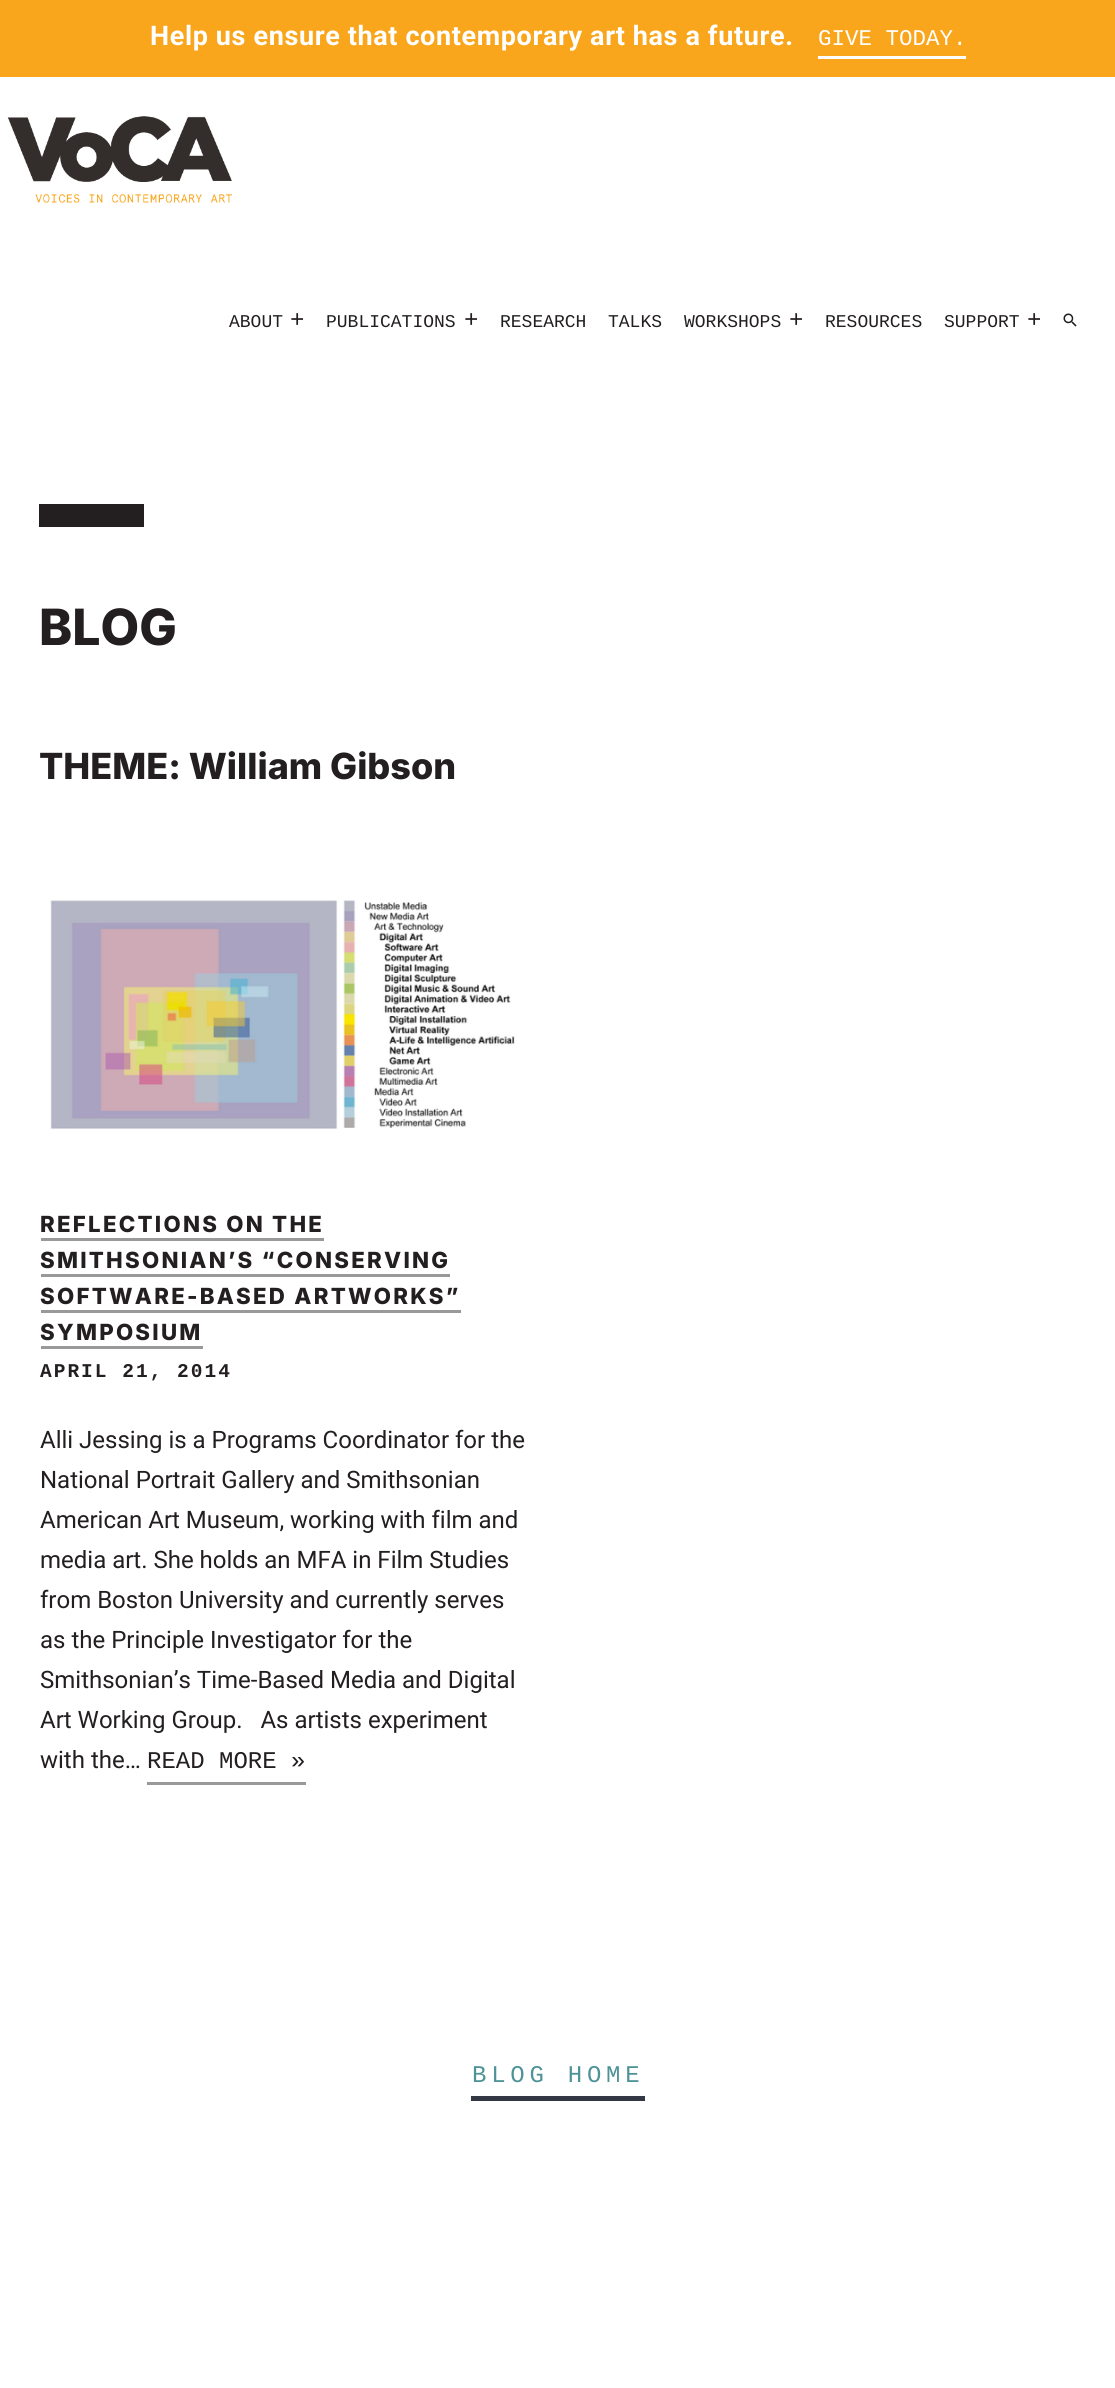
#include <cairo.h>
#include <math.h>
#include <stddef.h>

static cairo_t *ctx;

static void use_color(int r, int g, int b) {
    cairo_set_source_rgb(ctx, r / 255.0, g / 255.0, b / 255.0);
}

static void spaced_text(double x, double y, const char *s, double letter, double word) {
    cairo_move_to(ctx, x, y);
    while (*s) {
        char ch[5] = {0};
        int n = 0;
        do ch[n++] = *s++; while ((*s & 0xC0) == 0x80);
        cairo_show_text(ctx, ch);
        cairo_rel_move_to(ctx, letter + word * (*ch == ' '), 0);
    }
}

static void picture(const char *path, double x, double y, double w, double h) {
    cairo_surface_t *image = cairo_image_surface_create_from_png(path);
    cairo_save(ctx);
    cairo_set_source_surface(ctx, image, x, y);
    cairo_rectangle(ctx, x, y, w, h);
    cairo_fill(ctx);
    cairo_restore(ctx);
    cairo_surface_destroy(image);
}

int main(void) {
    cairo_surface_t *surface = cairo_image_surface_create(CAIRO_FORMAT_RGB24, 1115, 2388);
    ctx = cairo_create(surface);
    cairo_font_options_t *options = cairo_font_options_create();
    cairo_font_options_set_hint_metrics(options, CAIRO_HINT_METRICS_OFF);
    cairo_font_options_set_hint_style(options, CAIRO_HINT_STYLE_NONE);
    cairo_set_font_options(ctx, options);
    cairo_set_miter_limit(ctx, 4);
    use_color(255, 255, 255);
    cairo_paint(ctx);
    use_color(249, 166, 28);
    cairo_rectangle(ctx, 0, 0, 1115, 77);
    cairo_fill(ctx);
    cairo_select_font_face(ctx, "Roboto", CAIRO_FONT_SLANT_NORMAL, CAIRO_FONT_WEIGHT_BOLD);
    cairo_set_font_size(ctx, 27);
    use_color(255, 255, 255);
    spaced_text(150, 45, "Help us ensure that contemporary art has a future.", 0.63, 0);
    cairo_select_font_face(ctx, "Liberation Mono", CAIRO_FONT_SLANT_NORMAL, CAIRO_FONT_WEIGHT_NORMAL);
    cairo_set_font_size(ctx, 22.5);
    cairo_move_to(ctx, 818, 45);
    cairo_show_text(ctx, "GIVE TODAY.");
    cairo_rectangle(ctx, 818, 56, 148, 3);
    cairo_fill(ctx);
    picture("img1.png", 7, 116, 225, 87);
    cairo_set_font_size(ctx, 18);
    use_color(35, 31, 32);
    cairo_move_to(ctx, 229, 327);
    cairo_show_text(ctx, "ABOUT");
    cairo_set_font_size(ctx, 24);
    cairo_move_to(ctx, 290, 327);
    cairo_show_text(ctx, "+");
    cairo_set_font_size(ctx, 18);
    cairo_move_to(ctx, 326, 327);
    cairo_show_text(ctx, "PUBLICATIONS");
    cairo_set_font_size(ctx, 24);
    cairo_move_to(ctx, 464, 327);
    cairo_show_text(ctx, "+");
    cairo_set_font_size(ctx, 18);
    cairo_move_to(ctx, 500, 327);
    cairo_show_text(ctx, "RESEARCH");
    cairo_move_to(ctx, 608, 327);
    cairo_show_text(ctx, "TALKS");
    cairo_move_to(ctx, 684, 327);
    cairo_show_text(ctx, "WORKSHOPS");
    cairo_set_font_size(ctx, 24);
    cairo_move_to(ctx, 789, 327);
    cairo_show_text(ctx, "+");
    cairo_set_font_size(ctx, 18);
    cairo_move_to(ctx, 825, 327);
    cairo_show_text(ctx, "RESOURCES");
    cairo_move_to(ctx, 944, 327);
    cairo_show_text(ctx, "SUPPORT");
    cairo_set_font_size(ctx, 24);
    cairo_move_to(ctx, 1027, 327);
    cairo_show_text(ctx, "+");
    picture("img2.png", 1063, 313, 14, 14);
    cairo_rectangle(ctx, 39, 504, 105, 23);
    cairo_fill(ctx);
    cairo_select_font_face(ctx, "Inter ExtraBold", CAIRO_FONT_SLANT_NORMAL, CAIRO_FONT_WEIGHT_NORMAL);
    cairo_set_font_size(ctx, 50);
    cairo_move_to(ctx, 39, 645);
    cairo_show_text(ctx, "BLOG");
    cairo_set_font_size(ctx, 36);
    cairo_move_to(ctx, 39, 779);
    cairo_show_text(ctx, "THEME: William Gibson");
    picture("img3.png", 50, 900, 465, 229);
    cairo_set_font_size(ctx, 22.25);
    spaced_text(40, 1232, "REFLECTIONS ON THE", 2.25, 0);
    use_color(153, 153, 153);
    cairo_rectangle(ctx, 41, 1238, 283, 3);
    cairo_fill(ctx);
    use_color(35, 31, 32);
    spaced_text(40, 1268, "SMITHSONIAN’S “CONSERVING", 2.25, 0);
    use_color(153, 153, 153);
    cairo_rectangle(ctx, 41, 1274, 409, 3);
    cairo_fill(ctx);
    use_color(35, 31, 32);
    spaced_text(40, 1304, "SOFTWARE-BASED ARTWORKS”", 2.25, 0);
    use_color(153, 153, 153);
    cairo_rectangle(ctx, 41, 1310, 420, 3);
    cairo_fill(ctx);
    use_color(35, 31, 32);
    spaced_text(40, 1340, "SYMPOSIUM", 2.25, 0);
    use_color(153, 153, 153);
    cairo_rectangle(ctx, 41, 1346, 162, 3);
    cairo_fill(ctx);
    cairo_select_font_face(ctx, "Liberation Mono", CAIRO_FONT_SLANT_NORMAL, CAIRO_FONT_WEIGHT_BOLD);
    cairo_set_font_size(ctx, 19.5);
    use_color(35, 31, 32);
    spaced_text(40, 1377, "APRIL 21, 2014", 2, 0);
    cairo_select_font_face(ctx, "Roboto", CAIRO_FONT_SLANT_NORMAL, CAIRO_FONT_WEIGHT_NORMAL);
    cairo_set_font_size(ctx, 24);
    cairo_move_to(ctx, 40, 1448);
    cairo_show_text(ctx, "Alli Jessing is a Programs Coordinator for the");
    cairo_move_to(ctx, 40, 1488);
    cairo_show_text(ctx, "National Portrait Gallery and Smithsonian");
    cairo_move_to(ctx, 40, 1528);
    cairo_show_text(ctx, "American Art Museum, working with film and");
    cairo_move_to(ctx, 40, 1568);
    cairo_show_text(ctx, "media art. She holds an MFA in Film Studies");
    cairo_move_to(ctx, 40, 1608);
    cairo_show_text(ctx, "from Boston University and currently serves");
    cairo_move_to(ctx, 40, 1648);
    cairo_show_text(ctx, "as the Principle Investigator for the");
    cairo_move_to(ctx, 40, 1688);
    cairo_show_text(ctx, "Smithsonian’s Time-Based Media and Digital");
    cairo_move_to(ctx, 40, 1728);
    cairo_show_text(ctx, "Art Working Group.   As artists experiment");
    cairo_move_to(ctx, 40, 1768);
    cairo_show_text(ctx, "with the…");
    use_color(153, 153, 153);
    cairo_rectangle(ctx, 147, 1782, 159, 3);
    cairo_fill(ctx);
    cairo_select_font_face(ctx, "Liberation Mono", CAIRO_FONT_SLANT_NORMAL, CAIRO_FONT_WEIGHT_NORMAL);
    use_color(35, 31, 32);
    cairo_move_to(ctx, 147, 1768);
    cairo_show_text(ctx, "READ MORE »");
    use_color(78, 147, 152);
    spaced_text(472, 2082, "BLOG HOME", 4.75, 0);
    use_color(50, 57, 68);
    cairo_rectangle(ctx, 471, 2096, 174, 5);
    cairo_fill(ctx);
    cairo_surface_write_to_png(surface, "result.png");
    cairo_font_options_destroy(options);
    cairo_destroy(ctx);
    cairo_surface_destroy(surface);
    return 0;
}
